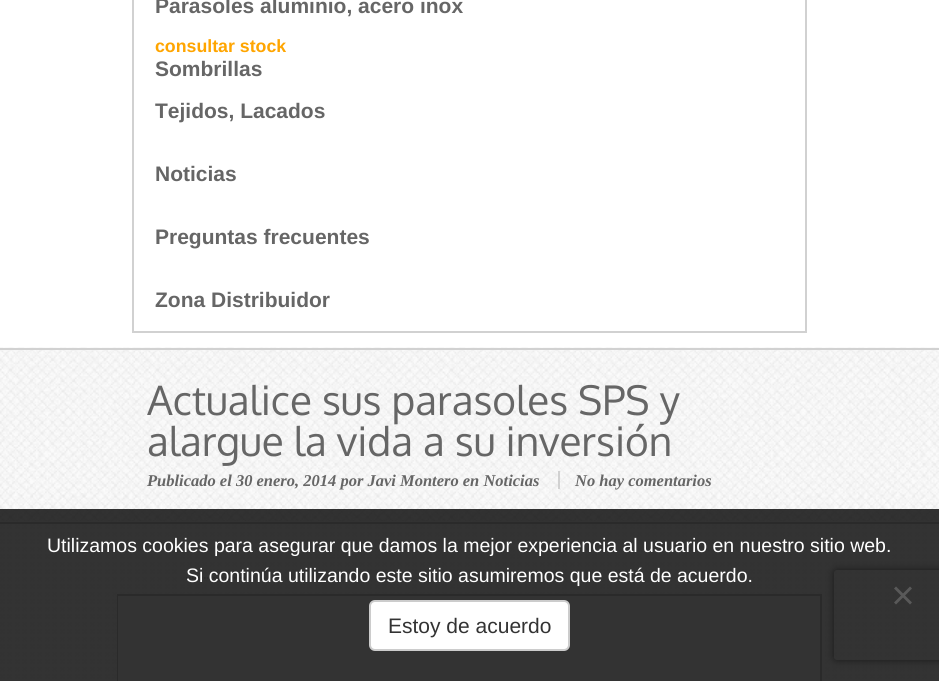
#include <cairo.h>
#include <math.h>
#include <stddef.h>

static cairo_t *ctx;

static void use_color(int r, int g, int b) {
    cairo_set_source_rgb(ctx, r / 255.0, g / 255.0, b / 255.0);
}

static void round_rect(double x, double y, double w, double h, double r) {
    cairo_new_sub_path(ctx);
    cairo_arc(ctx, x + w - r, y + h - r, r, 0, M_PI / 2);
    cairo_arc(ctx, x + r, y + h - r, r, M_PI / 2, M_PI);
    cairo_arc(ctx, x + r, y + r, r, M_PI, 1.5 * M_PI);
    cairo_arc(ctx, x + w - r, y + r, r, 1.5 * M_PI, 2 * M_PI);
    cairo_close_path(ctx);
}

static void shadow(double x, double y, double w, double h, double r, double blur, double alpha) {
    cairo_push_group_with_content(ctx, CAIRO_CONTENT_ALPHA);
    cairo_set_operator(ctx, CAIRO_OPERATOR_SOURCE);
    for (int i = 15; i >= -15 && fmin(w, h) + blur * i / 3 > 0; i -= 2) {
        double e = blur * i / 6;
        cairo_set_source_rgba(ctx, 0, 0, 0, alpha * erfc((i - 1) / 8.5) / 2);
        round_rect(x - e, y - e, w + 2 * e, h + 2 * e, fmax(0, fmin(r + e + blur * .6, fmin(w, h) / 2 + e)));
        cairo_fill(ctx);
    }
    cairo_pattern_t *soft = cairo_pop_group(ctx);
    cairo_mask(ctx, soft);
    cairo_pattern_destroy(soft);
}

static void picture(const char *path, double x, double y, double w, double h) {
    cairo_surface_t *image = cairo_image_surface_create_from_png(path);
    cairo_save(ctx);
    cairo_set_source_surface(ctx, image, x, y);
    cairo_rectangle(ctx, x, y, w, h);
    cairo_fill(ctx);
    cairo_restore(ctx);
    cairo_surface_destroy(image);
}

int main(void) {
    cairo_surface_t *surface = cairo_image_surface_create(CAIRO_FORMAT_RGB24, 939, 681);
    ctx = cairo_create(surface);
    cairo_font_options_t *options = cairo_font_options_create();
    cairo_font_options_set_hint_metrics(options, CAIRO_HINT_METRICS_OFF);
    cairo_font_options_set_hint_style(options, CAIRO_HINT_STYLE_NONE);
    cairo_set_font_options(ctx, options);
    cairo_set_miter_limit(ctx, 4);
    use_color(255, 255, 255);
    cairo_paint(ctx);
    cairo_rectangle(ctx, 133, -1, 673, 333);
    use_color(209, 209, 209);
    cairo_stroke(ctx);
    cairo_select_font_face(ctx, "Liberation Sans", CAIRO_FONT_SLANT_NORMAL, CAIRO_FONT_WEIGHT_BOLD);
    cairo_set_font_size(ctx, 21);
    use_color(102, 102, 102);
    cairo_move_to(ctx, 155, 13);
    cairo_show_text(ctx, "Parasoles aluminio, acero inox");
    cairo_set_font_size(ctx, 17.75);
    use_color(255, 165, 0);
    cairo_move_to(ctx, 155, 52);
    cairo_show_text(ctx, "consultar stock");
    cairo_set_font_size(ctx, 21);
    use_color(102, 102, 102);
    cairo_move_to(ctx, 155, 76);
    cairo_show_text(ctx, "Sombrillas");
    cairo_move_to(ctx, 155, 118);
    cairo_show_text(ctx, "Tejidos, Lacados");
    cairo_move_to(ctx, 155, 181);
    cairo_show_text(ctx, "Noticias");
    cairo_move_to(ctx, 155, 244);
    cairo_show_text(ctx, "Preguntas frecuentes");
    cairo_move_to(ctx, 155, 307);
    cairo_show_text(ctx, "Zona Distribuidor");
    picture("img1.png", 0, 347, 939, 175);
    use_color(209, 209, 209);
    cairo_rectangle(ctx, 0, 348, 939, 2);
    cairo_fill(ctx);
    cairo_select_font_face(ctx, "Oxygen", CAIRO_FONT_SLANT_NORMAL, CAIRO_FONT_WEIGHT_NORMAL);
    cairo_set_font_size(ctx, 40.5);
    use_color(102, 102, 102);
    cairo_move_to(ctx, 147, 415);
    cairo_show_text(ctx, "Actualice sus parasoles SPS y");
    cairo_move_to(ctx, 147, 456);
    cairo_show_text(ctx, "alargue la vida a su inversión");
    cairo_select_font_face(ctx, "Liberation Serif", CAIRO_FONT_SLANT_ITALIC, CAIRO_FONT_WEIGHT_BOLD);
    cairo_set_font_size(ctx, 16.5);
    cairo_move_to(ctx, 147, 486);
    cairo_show_text(ctx, "Publicado el 30 enero, 2014 por Javi Montero en Noticias");
    cairo_move_to(ctx, 575, 486);
    cairo_show_text(ctx, "No hay comentarios");
    use_color(209, 209, 209);
    cairo_rectangle(ctx, 558, 471, 2, 18);
    cairo_fill(ctx);
    picture("img2.png", 0, 524, 939, 157);
    cairo_rectangle(ctx, 0, 522, 939, 2);
    cairo_fill(ctx);
    cairo_new_path(ctx);
    cairo_move_to(ctx, 186, 578);
    cairo_line_to(ctx, 244.5, 578);
    cairo_set_line_width(ctx, 1.5);
    cairo_set_dash(ctx, (double[]){1.5, 1.5}, 2, 0);
    cairo_stroke(ctx);
    use_color(255, 255, 255);
    cairo_rectangle(ctx, 120, 596, 700, 83);
    cairo_fill(ctx);
    use_color(209, 209, 209);
    cairo_rectangle(ctx, 117, 594, 705, 2);
    cairo_fill(ctx);
    cairo_new_path(ctx);
    cairo_move_to(ctx, 822, 594);
    cairo_line_to(ctx, 822, 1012);
    cairo_line_to(ctx, 820, 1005);
    cairo_line_to(ctx, 820, 596);
    cairo_close_path(ctx);
    cairo_fill(ctx);
    cairo_new_path(ctx);
    cairo_move_to(ctx, 117, 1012);
    cairo_line_to(ctx, 117, 594);
    cairo_line_to(ctx, 118, 596);
    cairo_line_to(ctx, 118, 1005);
    cairo_close_path(ctx);
    cairo_fill(ctx);
    cairo_save(ctx);
    cairo_set_fill_rule(ctx, CAIRO_FILL_RULE_EVEN_ODD);
    cairo_new_path(ctx);
    cairo_move_to(ctx, 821, 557);
    cairo_line_to(ctx, 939, 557);
    cairo_line_to(ctx, 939, 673);
    cairo_line_to(ctx, 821, 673);
    cairo_close_path(ctx);
    cairo_move_to(ctx, 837, 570);
    cairo_line_to(ctx, 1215, 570);
    cairo_curve_to(ctx, 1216.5, 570, 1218, 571.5, 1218, 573);
    cairo_line_to(ctx, 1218, 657);
    cairo_curve_to(ctx, 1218, 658.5, 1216.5, 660, 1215, 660);
    cairo_line_to(ctx, 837, 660);
    cairo_curve_to(ctx, 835.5, 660, 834, 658.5, 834, 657);
    cairo_line_to(ctx, 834, 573);
    cairo_curve_to(ctx, 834, 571.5, 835.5, 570, 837, 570);
    cairo_close_path(ctx);
    cairo_clip(ctx);
    use_color(128, 128, 128);
    shadow(834, 570, 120, 90, 3, 4, 1);
    cairo_restore(ctx);
    cairo_set_source_rgba(ctx, 0, 0, 0, 0.8);
    cairo_rectangle(ctx, 0, 509, 939, 172);
    cairo_fill(ctx);
    cairo_select_font_face(ctx, "Liberation Sans", CAIRO_FONT_SLANT_NORMAL, CAIRO_FONT_WEIGHT_NORMAL);
    cairo_set_font_size(ctx, 19.5);
    use_color(255, 255, 255);
    cairo_move_to(ctx, 47, 552);
    cairo_show_text(ctx, "Utilizamos cookies para asegurar que damos la mejor experiencia al usuario en nuestro sitio web.");
    cairo_move_to(ctx, 186, 582);
    cairo_show_text(ctx, "Si continúa utilizando este sitio asumiremos que está de acuerdo.");
    use_color(89, 89, 89);
    cairo_new_path(ctx);
    cairo_move_to(ctx, 910, 586.5);
    cairo_line_to(ctx, 912, 588.5);
    cairo_line_to(ctx, 896, 604.5);
    cairo_line_to(ctx, 894, 602.5);
    cairo_close_path(ctx);
    cairo_fill(ctx);
    cairo_new_path(ctx);
    cairo_move_to(ctx, 894, 588.5);
    cairo_line_to(ctx, 896, 586.5);
    cairo_line_to(ctx, 912, 602.5);
    cairo_line_to(ctx, 910, 604.5);
    cairo_close_path(ctx);
    cairo_fill(ctx);
    use_color(255, 255, 255);
    round_rect(370, 601, 199, 49, 5);
    cairo_fill_preserve(ctx);
    use_color(204, 204, 204);
    cairo_set_line_width(ctx, 2);
    cairo_set_dash(ctx, NULL, 0, 0);
    cairo_stroke(ctx);
    cairo_set_font_size(ctx, 21);
    use_color(51, 51, 51);
    cairo_move_to(ctx, 388, 633);
    cairo_show_text(ctx, "Estoy de acuerdo");
    cairo_surface_write_to_png(surface, "result.png");
    cairo_font_options_destroy(options);
    cairo_destroy(ctx);
    cairo_surface_destroy(surface);
    return 0;
}
